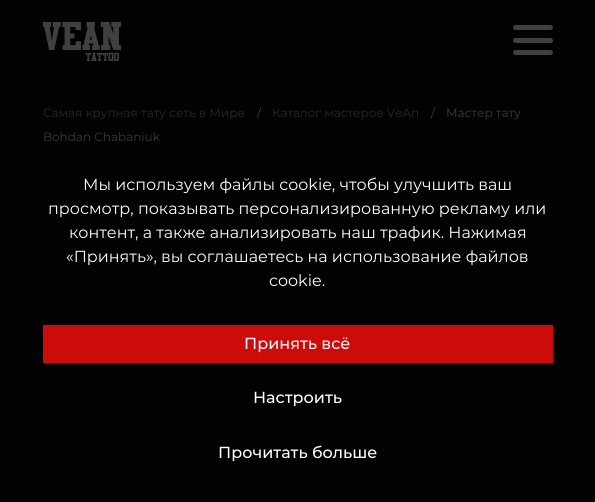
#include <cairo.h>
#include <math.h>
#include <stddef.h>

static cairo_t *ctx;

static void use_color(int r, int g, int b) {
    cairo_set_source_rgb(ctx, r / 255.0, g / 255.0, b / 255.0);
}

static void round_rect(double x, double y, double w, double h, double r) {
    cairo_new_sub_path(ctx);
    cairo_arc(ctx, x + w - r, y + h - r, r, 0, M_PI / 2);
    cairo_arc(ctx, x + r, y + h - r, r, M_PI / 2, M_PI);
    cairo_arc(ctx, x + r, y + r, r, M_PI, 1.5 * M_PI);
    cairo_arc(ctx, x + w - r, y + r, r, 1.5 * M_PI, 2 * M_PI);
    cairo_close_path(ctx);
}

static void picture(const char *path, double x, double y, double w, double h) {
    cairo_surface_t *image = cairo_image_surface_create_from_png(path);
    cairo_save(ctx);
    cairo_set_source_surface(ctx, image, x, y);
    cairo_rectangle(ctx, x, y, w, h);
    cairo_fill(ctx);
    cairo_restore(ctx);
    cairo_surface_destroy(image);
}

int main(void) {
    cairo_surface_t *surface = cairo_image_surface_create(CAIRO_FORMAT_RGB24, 595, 502);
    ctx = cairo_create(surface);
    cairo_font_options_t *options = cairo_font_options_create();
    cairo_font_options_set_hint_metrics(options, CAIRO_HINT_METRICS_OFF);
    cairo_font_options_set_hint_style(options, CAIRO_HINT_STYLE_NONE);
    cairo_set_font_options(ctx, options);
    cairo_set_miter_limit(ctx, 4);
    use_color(2, 2, 2);
    cairo_paint(ctx);
    picture("img1.png", 43, 22, 78, 39);
    use_color(64, 64, 64);
    round_rect(513, 25, 40, 5, 2.5);
    cairo_fill(ctx);
    round_rect(513, 38, 40, 5, 2.5);
    cairo_fill(ctx);
    round_rect(513, 50, 40, 5, 2.5);
    cairo_fill(ctx);
    cairo_select_font_face(ctx, "Montserrat", CAIRO_FONT_SLANT_NORMAL, CAIRO_FONT_WEIGHT_NORMAL);
    cairo_set_font_size(ctx, 12);
    use_color(41, 41, 41);
    cairo_move_to(ctx, 43, 117);
    cairo_show_text(ctx, "Самая крупная тату сеть в Мире");
    use_color(58, 58, 58);
    cairo_move_to(ctx, 257, 117);
    cairo_show_text(ctx, "/");
    use_color(41, 41, 41);
    cairo_move_to(ctx, 272, 117);
    cairo_show_text(ctx, "Каталог мастеров VeAn");
    use_color(58, 58, 58);
    cairo_move_to(ctx, 431, 117);
    cairo_show_text(ctx, "/");
    cairo_move_to(ctx, 446, 117);
    cairo_show_text(ctx, "Мастер тату");
    cairo_move_to(ctx, 43, 141);
    cairo_show_text(ctx, "Bohdan Chabaniuk");
    cairo_set_font_size(ctx, 16);
    use_color(255, 255, 255);
    cairo_move_to(ctx, 83, 190);
    cairo_show_text(ctx, "Мы используем файлы cookie, чтобы улучшить ваш");
    cairo_move_to(ctx, 48, 214);
    cairo_show_text(ctx, "просмотр, показывать персонализированную рекламу или");
    cairo_move_to(ctx, 69, 238);
    cairo_show_text(ctx, "контент, а также анализировать наш трафик. Нажимая");
    cairo_move_to(ctx, 66, 262);
    cairo_show_text(ctx, "«Принять», вы соглашаетесь на использование файлов");
    cairo_move_to(ctx, 269, 286);
    cairo_show_text(ctx, "cookie.");
    use_color(206, 11, 11);
    cairo_rectangle(ctx, 43, 325, 510, 38);
    cairo_fill(ctx);
    cairo_select_font_face(ctx, "Montserrat Medium", CAIRO_FONT_SLANT_NORMAL, CAIRO_FONT_WEIGHT_NORMAL);
    use_color(255, 255, 255);
    cairo_move_to(ctx, 244, 349);
    cairo_show_text(ctx, "Принять всё");
    cairo_move_to(ctx, 253, 403);
    cairo_show_text(ctx, "Настроить");
    cairo_move_to(ctx, 218, 458);
    cairo_show_text(ctx, "Прочитать больше");
    cairo_surface_write_to_png(surface, "result.png");
    cairo_font_options_destroy(options);
    cairo_destroy(ctx);
    cairo_surface_destroy(surface);
    return 0;
}
